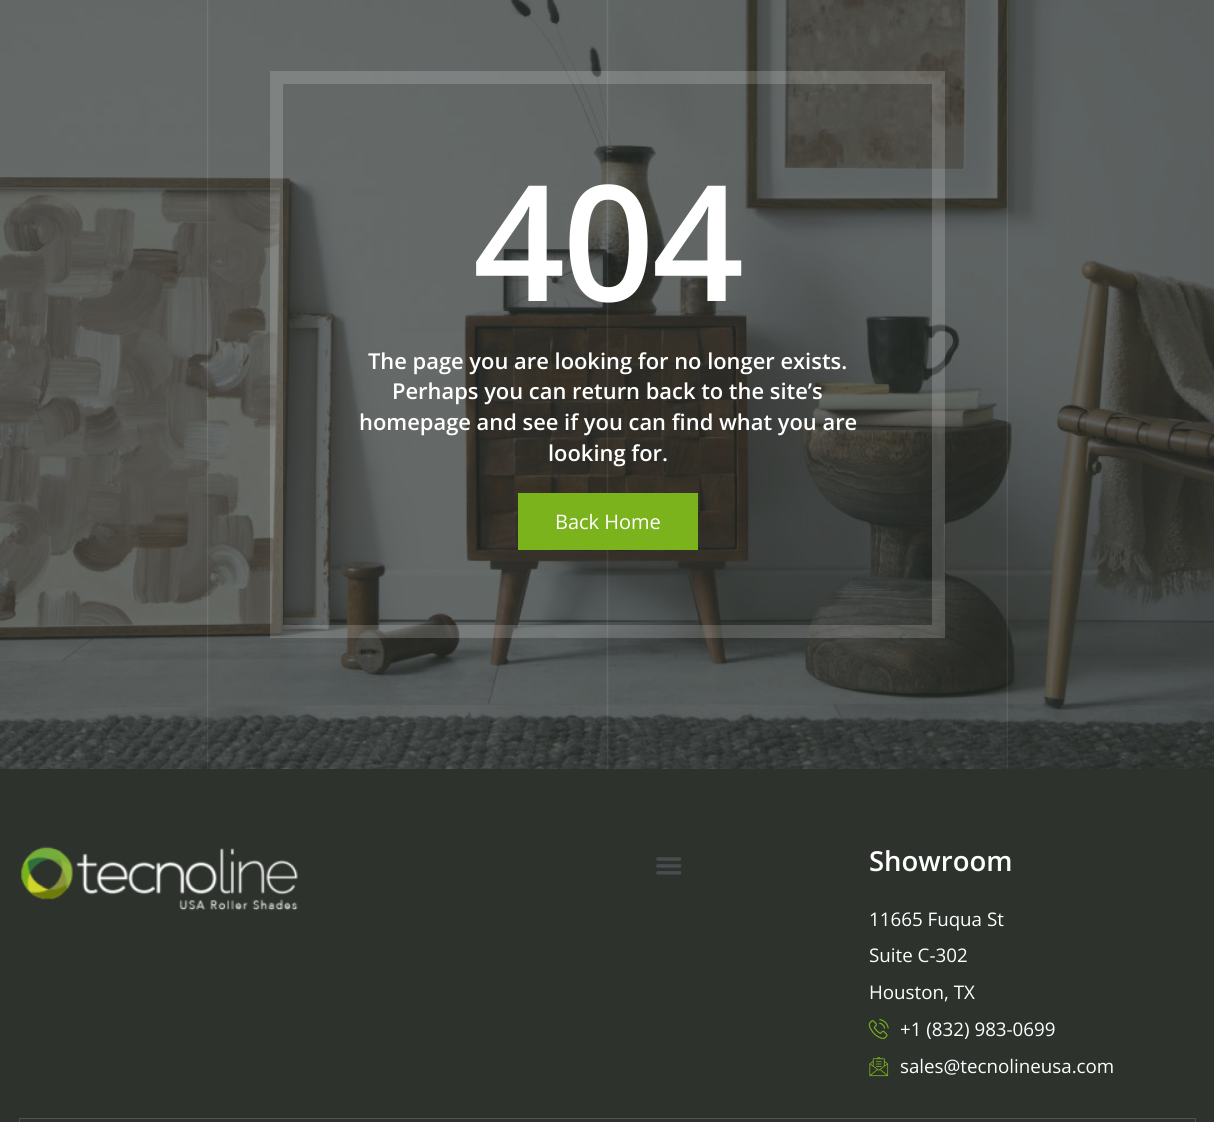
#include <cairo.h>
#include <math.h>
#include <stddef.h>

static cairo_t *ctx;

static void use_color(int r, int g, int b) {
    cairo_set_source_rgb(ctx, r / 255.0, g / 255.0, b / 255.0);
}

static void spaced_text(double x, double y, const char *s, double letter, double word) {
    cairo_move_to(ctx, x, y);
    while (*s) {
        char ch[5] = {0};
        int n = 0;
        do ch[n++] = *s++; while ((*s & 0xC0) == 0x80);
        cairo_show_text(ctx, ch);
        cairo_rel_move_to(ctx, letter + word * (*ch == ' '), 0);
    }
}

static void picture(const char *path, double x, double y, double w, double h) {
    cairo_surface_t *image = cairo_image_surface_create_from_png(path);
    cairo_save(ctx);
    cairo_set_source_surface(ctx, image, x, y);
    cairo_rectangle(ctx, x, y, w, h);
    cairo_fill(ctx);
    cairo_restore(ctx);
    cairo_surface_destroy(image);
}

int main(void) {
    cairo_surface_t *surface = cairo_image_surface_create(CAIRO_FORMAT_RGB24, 1214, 1122);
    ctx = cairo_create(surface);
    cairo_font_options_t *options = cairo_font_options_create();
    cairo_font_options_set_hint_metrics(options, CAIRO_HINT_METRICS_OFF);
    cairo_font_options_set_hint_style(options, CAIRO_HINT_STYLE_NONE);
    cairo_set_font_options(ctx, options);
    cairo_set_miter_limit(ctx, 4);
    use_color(45, 50, 45);
    cairo_paint(ctx);
    picture("img1.png", 207, 0, 801, 769);
    picture("img2.png", 0, 0, 1214, 769);
    cairo_rectangle(ctx, 276.5, 77.5, 662, 554);
    cairo_set_source_rgba(ctx, 1, 1, 1, 0.17);
    cairo_set_line_width(ctx, 13);
    cairo_stroke(ctx);
    cairo_select_font_face(ctx, "Open Sans SemiBold", CAIRO_FONT_SLANT_NORMAL, CAIRO_FONT_WEIGHT_NORMAL);
    cairo_set_font_size(ctx, 161);
    use_color(255, 255, 255);
    spaced_text(473, 301, "404", -2.5, 0);
    cairo_set_font_size(ctx, 21.9);
    cairo_move_to(ctx, 368, 369);
    cairo_show_text(ctx, "The page you are looking for no longer exists.");
    cairo_move_to(ctx, 392, 399);
    cairo_show_text(ctx, "Perhaps you can return back to the site’s");
    cairo_move_to(ctx, 359, 430);
    cairo_show_text(ctx, "homepage and see if you can find what you are");
    cairo_move_to(ctx, 548, 461);
    cairo_show_text(ctx, "looking for.");
    use_color(122, 179, 27);
    cairo_rectangle(ctx, 518, 493, 180, 57);
    cairo_fill(ctx);
    cairo_select_font_face(ctx, "Open Sans", CAIRO_FONT_SLANT_NORMAL, CAIRO_FONT_WEIGHT_NORMAL);
    cairo_set_font_size(ctx, 20);
    use_color(255, 255, 255);
    cairo_move_to(ctx, 555, 529);
    cairo_show_text(ctx, "Back Home");
    picture("img3.png", 21, 846, 277, 65);
    picture("img4.png", 656, 857, 26, 18);
    cairo_select_font_face(ctx, "Open Sans SemiBold", CAIRO_FONT_SLANT_NORMAL, CAIRO_FONT_WEIGHT_NORMAL);
    cairo_set_font_size(ctx, 27.5);
    cairo_move_to(ctx, 869, 871);
    cairo_show_text(ctx, "Showroom");
    cairo_select_font_face(ctx, "Open Sans", CAIRO_FONT_SLANT_NORMAL, CAIRO_FONT_WEIGHT_NORMAL);
    cairo_set_font_size(ctx, 18.75);
    cairo_move_to(ctx, 869, 926);
    cairo_show_text(ctx, "11665 Fuqua St");
    cairo_move_to(ctx, 869, 962);
    cairo_show_text(ctx, "Suite C-302");
    cairo_move_to(ctx, 869, 999);
    cairo_show_text(ctx, "Houston, TX");
    picture("img5.png", 868, 1019, 21, 20);
    cairo_move_to(ctx, 900, 1036);
    cairo_show_text(ctx, "+1 (832) 983-0699");
    picture("img6.png", 869, 1057, 20, 20);
    cairo_move_to(ctx, 900, 1073);
    cairo_show_text(ctx, "sales@tecnolineusa.com");
    cairo_rectangle(ctx, 19.5, 1118.5, 1176, 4);
    use_color(81, 85, 81);
    cairo_set_line_width(ctx, 1);
    cairo_stroke(ctx);
    cairo_surface_write_to_png(surface, "result.png");
    cairo_font_options_destroy(options);
    cairo_destroy(ctx);
    cairo_surface_destroy(surface);
    return 0;
}
